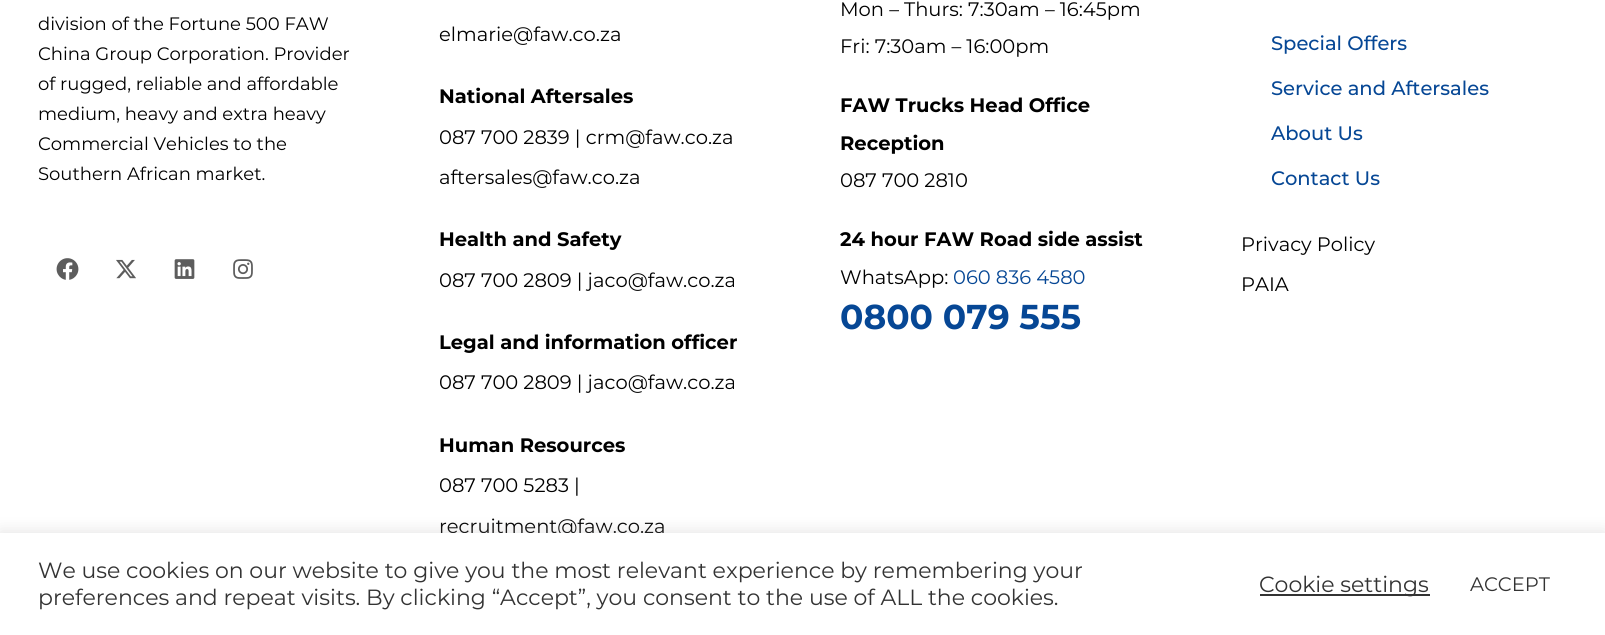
#include <cairo.h>
#include <math.h>
#include <stddef.h>

static cairo_t *ctx;

static void use_color(int r, int g, int b) {
    cairo_set_source_rgb(ctx, r / 255.0, g / 255.0, b / 255.0);
}

static void round_rect(double x, double y, double w, double h, double r) {
    cairo_new_sub_path(ctx);
    cairo_arc(ctx, x + w - r, y + h - r, r, 0, M_PI / 2);
    cairo_arc(ctx, x + r, y + h - r, r, M_PI / 2, M_PI);
    cairo_arc(ctx, x + r, y + r, r, M_PI, 1.5 * M_PI);
    cairo_arc(ctx, x + w - r, y + r, r, 1.5 * M_PI, 2 * M_PI);
    cairo_close_path(ctx);
}

static void shadow(double x, double y, double w, double h, double r, double blur, double alpha) {
    cairo_push_group_with_content(ctx, CAIRO_CONTENT_ALPHA);
    cairo_set_operator(ctx, CAIRO_OPERATOR_SOURCE);
    for (int i = 15; i >= -15 && fmin(w, h) + blur * i / 3 > 0; i -= 2) {
        double e = blur * i / 6;
        cairo_set_source_rgba(ctx, 0, 0, 0, alpha * erfc((i - 1) / 8.5) / 2);
        round_rect(x - e, y - e, w + 2 * e, h + 2 * e, fmax(0, fmin(r + e + blur * .6, fmin(w, h) / 2 + e)));
        cairo_fill(ctx);
    }
    cairo_pattern_t *soft = cairo_pop_group(ctx);
    cairo_mask(ctx, soft);
    cairo_pattern_destroy(soft);
}

static void picture(const char *path, double x, double y, double w, double h) {
    cairo_surface_t *image = cairo_image_surface_create_from_png(path);
    cairo_save(ctx);
    cairo_set_source_surface(ctx, image, x, y);
    cairo_rectangle(ctx, x, y, w, h);
    cairo_fill(ctx);
    cairo_restore(ctx);
    cairo_surface_destroy(image);
}

int main(void) {
    cairo_surface_t *surface = cairo_image_surface_create(CAIRO_FORMAT_RGB24, 1605, 635);
    ctx = cairo_create(surface);
    cairo_font_options_t *options = cairo_font_options_create();
    cairo_font_options_set_hint_metrics(options, CAIRO_HINT_METRICS_OFF);
    cairo_font_options_set_hint_style(options, CAIRO_HINT_STYLE_NONE);
    cairo_set_font_options(ctx, options);
    cairo_set_miter_limit(ctx, 4);
    use_color(255, 255, 255);
    cairo_paint(ctx);
    cairo_select_font_face(ctx, "Montserrat", CAIRO_FONT_SLANT_NORMAL, CAIRO_FONT_WEIGHT_NORMAL);
    cairo_set_font_size(ctx, 18);
    use_color(0, 0, 0);
    cairo_move_to(ctx, 38, 30);
    cairo_show_text(ctx, "division of the Fortune 500 FAW");
    cairo_move_to(ctx, 38, 60);
    cairo_show_text(ctx, "China Group Corporation. Provider");
    cairo_move_to(ctx, 38, 90);
    cairo_show_text(ctx, "of rugged, reliable and affordable");
    cairo_move_to(ctx, 38, 120);
    cairo_show_text(ctx, "medium, heavy and extra heavy");
    cairo_move_to(ctx, 38, 150);
    cairo_show_text(ctx, "Commercial Vehicles to the");
    cairo_move_to(ctx, 38, 180);
    cairo_show_text(ctx, "Southern African market.");
    picture("img1.png", 56, 258, 23, 22);
    picture("img2.png", 116, 259, 20, 20);
    picture("img3.png", 174, 259, 21, 20);
    picture("img4.png", 233, 259, 20, 20);
    cairo_set_font_size(ctx, 19.5);
    cairo_move_to(ctx, 439, 41);
    cairo_show_text(ctx, "elmarie@faw.co.za");
    cairo_select_font_face(ctx, "Montserrat", CAIRO_FONT_SLANT_NORMAL, CAIRO_FONT_WEIGHT_BOLD);
    cairo_move_to(ctx, 439, 103);
    cairo_show_text(ctx, "National Aftersales");
    cairo_select_font_face(ctx, "Montserrat", CAIRO_FONT_SLANT_NORMAL, CAIRO_FONT_WEIGHT_NORMAL);
    cairo_move_to(ctx, 439, 144);
    cairo_show_text(ctx, "087 700 2839 | crm@faw.co.za");
    cairo_move_to(ctx, 439, 184);
    cairo_show_text(ctx, "aftersales@faw.co.za");
    cairo_select_font_face(ctx, "Montserrat", CAIRO_FONT_SLANT_NORMAL, CAIRO_FONT_WEIGHT_BOLD);
    cairo_move_to(ctx, 439, 246);
    cairo_show_text(ctx, "Health and Safety");
    cairo_select_font_face(ctx, "Montserrat", CAIRO_FONT_SLANT_NORMAL, CAIRO_FONT_WEIGHT_NORMAL);
    cairo_move_to(ctx, 439, 287);
    cairo_show_text(ctx, "087 700 2809 | jaco@faw.co.za");
    cairo_select_font_face(ctx, "Montserrat", CAIRO_FONT_SLANT_NORMAL, CAIRO_FONT_WEIGHT_BOLD);
    cairo_move_to(ctx, 439, 349);
    cairo_show_text(ctx, "Legal and information officer");
    cairo_select_font_face(ctx, "Montserrat", CAIRO_FONT_SLANT_NORMAL, CAIRO_FONT_WEIGHT_NORMAL);
    cairo_move_to(ctx, 439, 389);
    cairo_show_text(ctx, "087 700 2809 | jaco@faw.co.za");
    cairo_select_font_face(ctx, "Montserrat", CAIRO_FONT_SLANT_NORMAL, CAIRO_FONT_WEIGHT_BOLD);
    cairo_move_to(ctx, 439, 452);
    cairo_show_text(ctx, "Human Resources");
    cairo_select_font_face(ctx, "Montserrat", CAIRO_FONT_SLANT_NORMAL, CAIRO_FONT_WEIGHT_NORMAL);
    cairo_move_to(ctx, 439, 492);
    cairo_show_text(ctx, "087 700 5283 |");
    cairo_move_to(ctx, 439, 533);
    cairo_show_text(ctx, "recruitment@faw.co.za");
    cairo_move_to(ctx, 840, 16);
    cairo_show_text(ctx, "Mon – Thurs: 7:30am – 16:45pm");
    cairo_move_to(ctx, 840, 53);
    cairo_show_text(ctx, "Fri: 7:30am – 16:00pm");
    cairo_select_font_face(ctx, "Montserrat", CAIRO_FONT_SLANT_NORMAL, CAIRO_FONT_WEIGHT_BOLD);
    cairo_move_to(ctx, 840, 112);
    cairo_show_text(ctx, "FAW Trucks Head Office");
    cairo_move_to(ctx, 840, 150);
    cairo_show_text(ctx, "Reception");
    cairo_select_font_face(ctx, "Montserrat", CAIRO_FONT_SLANT_NORMAL, CAIRO_FONT_WEIGHT_NORMAL);
    cairo_move_to(ctx, 840, 187);
    cairo_show_text(ctx, "087 700 2810");
    cairo_select_font_face(ctx, "Montserrat", CAIRO_FONT_SLANT_NORMAL, CAIRO_FONT_WEIGHT_BOLD);
    cairo_move_to(ctx, 840, 246);
    cairo_show_text(ctx, "24 hour FAW Road side assist");
    cairo_select_font_face(ctx, "Montserrat", CAIRO_FONT_SLANT_NORMAL, CAIRO_FONT_WEIGHT_NORMAL);
    cairo_move_to(ctx, 840, 284);
    cairo_show_text(ctx, "WhatsApp:");
    use_color(6, 71, 149);
    cairo_move_to(ctx, 953, 284);
    cairo_show_text(ctx, "060 836 4580");
    cairo_select_font_face(ctx, "Montserrat", CAIRO_FONT_SLANT_NORMAL, CAIRO_FONT_WEIGHT_BOLD);
    cairo_set_font_size(ctx, 34.5);
    cairo_move_to(ctx, 840, 329);
    cairo_show_text(ctx, "0800 079 555");
    cairo_select_font_face(ctx, "Montserrat Medium", CAIRO_FONT_SLANT_NORMAL, CAIRO_FONT_WEIGHT_NORMAL);
    cairo_set_font_size(ctx, 19.5);
    cairo_move_to(ctx, 1271, 50);
    cairo_show_text(ctx, "Special Offers");
    cairo_move_to(ctx, 1271, 95);
    cairo_show_text(ctx, "Service and Aftersales");
    cairo_move_to(ctx, 1271, 140);
    cairo_show_text(ctx, "About Us");
    cairo_move_to(ctx, 1271, 185);
    cairo_show_text(ctx, "Contact Us");
    cairo_select_font_face(ctx, "Montserrat", CAIRO_FONT_SLANT_NORMAL, CAIRO_FONT_WEIGHT_NORMAL);
    use_color(0, 0, 0);
    cairo_move_to(ctx, 1241, 251);
    cairo_show_text(ctx, "Privacy Policy");
    cairo_move_to(ctx, 1241, 291);
    cairo_show_text(ctx, "PAIA");
    use_color(172, 171, 171);
    shadow(0, 531, 1605, 104, 0, 7.5, 0.3);
    use_color(255, 255, 255);
    cairo_rectangle(ctx, 0, 533, 1605, 102);
    cairo_fill(ctx);
    cairo_set_font_size(ctx, 22);
    use_color(51, 51, 51);
    cairo_move_to(ctx, 38, 578);
    cairo_show_text(ctx, "We use cookies on our website to give you the most relevant experience by remembering your");
    cairo_move_to(ctx, 38, 605);
    cairo_show_text(ctx, "preferences and repeat visits. By clicking “Accept”, you consent to the use of ALL the cookies.");
    cairo_rectangle(ctx, 1260, 594, 170, 2);
    cairo_fill(ctx);
    cairo_move_to(ctx, 1259, 592);
    cairo_show_text(ctx, "Cookie settings");
    cairo_set_font_size(ctx, 19.5);
    cairo_move_to(ctx, 1470, 591);
    cairo_show_text(ctx, "ACCEPT");
    cairo_surface_write_to_png(surface, "result.png");
    cairo_font_options_destroy(options);
    cairo_destroy(ctx);
    cairo_surface_destroy(surface);
    return 0;
}
